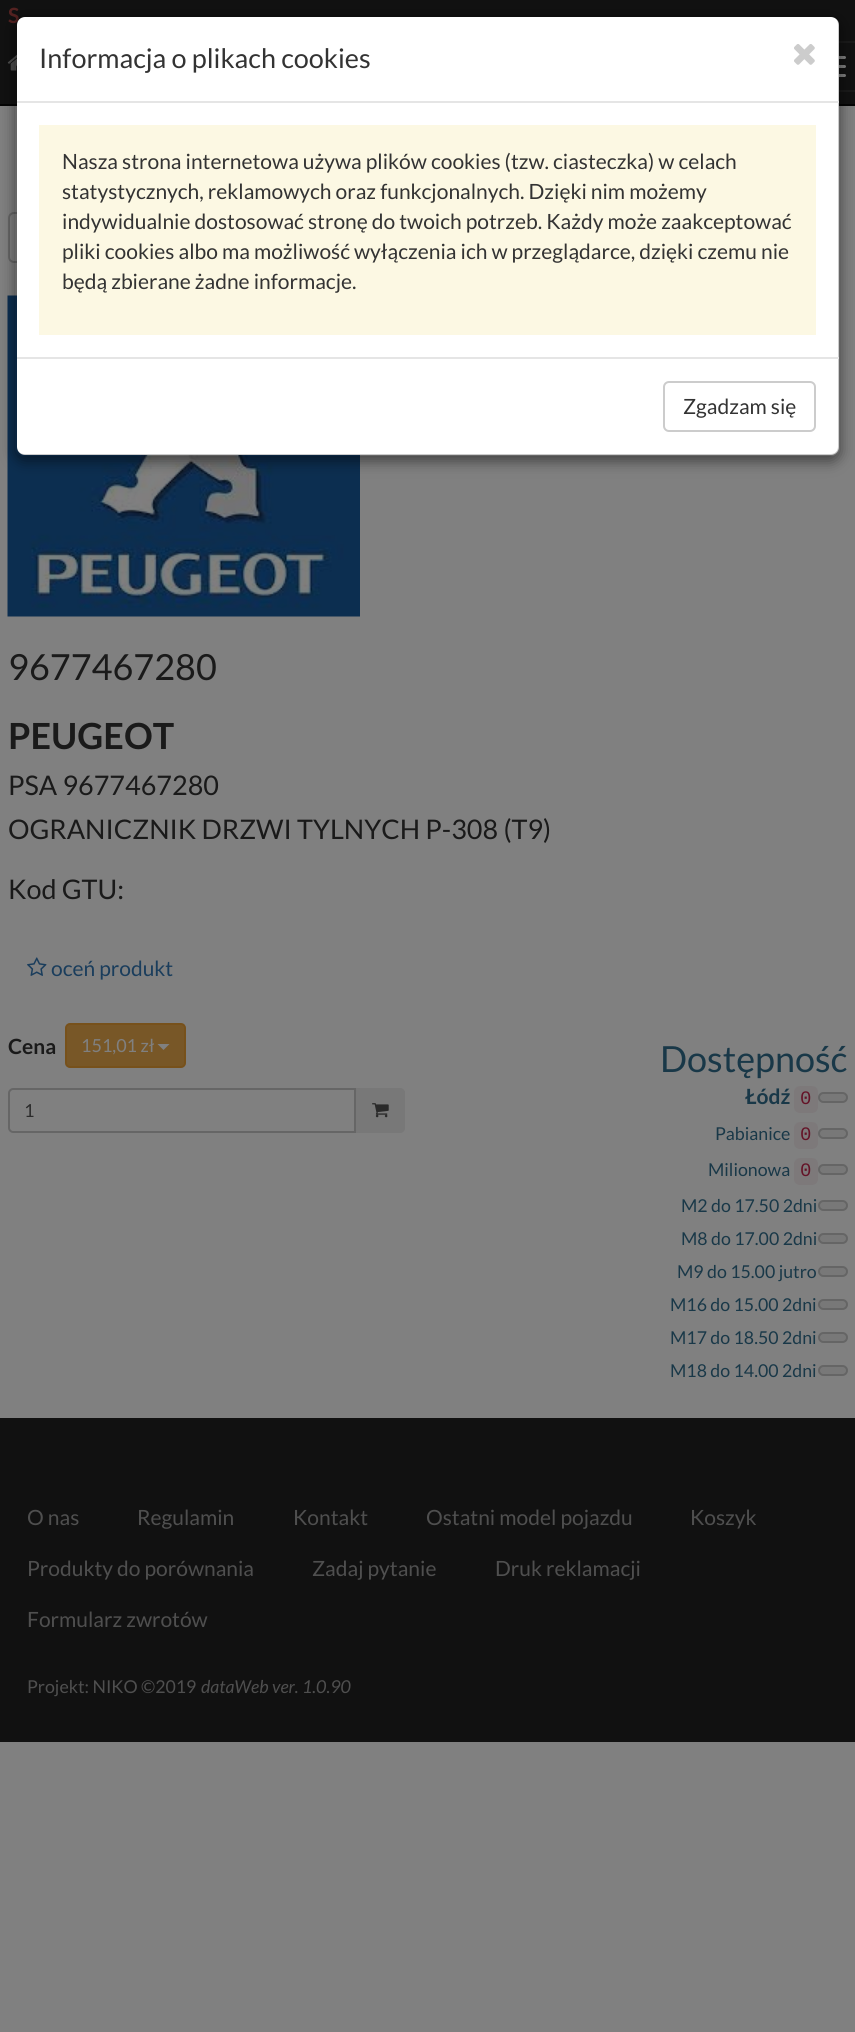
#include <cairo.h>
#include <math.h>
#include <stddef.h>

static cairo_t *ctx;

static void use_color(int r, int g, int b) {
    cairo_set_source_rgb(ctx, r / 255.0, g / 255.0, b / 255.0);
}

static void round_rect(double x, double y, double w, double h, double r) {
    cairo_new_sub_path(ctx);
    cairo_arc(ctx, x + w - r, y + h - r, r, 0, M_PI / 2);
    cairo_arc(ctx, x + r, y + h - r, r, M_PI / 2, M_PI);
    cairo_arc(ctx, x + r, y + r, r, M_PI, 1.5 * M_PI);
    cairo_arc(ctx, x + w - r, y + r, r, 1.5 * M_PI, 2 * M_PI);
    cairo_close_path(ctx);
}

static void shadow(double x, double y, double w, double h, double r, double blur, double alpha) {
    cairo_push_group_with_content(ctx, CAIRO_CONTENT_ALPHA);
    cairo_set_operator(ctx, CAIRO_OPERATOR_SOURCE);
    for (int i = 15; i >= -15 && fmin(w, h) + blur * i / 3 > 0; i -= 2) {
        double e = blur * i / 6;
        cairo_set_source_rgba(ctx, 0, 0, 0, alpha * erfc((i - 1) / 8.5) / 2);
        round_rect(x - e, y - e, w + 2 * e, h + 2 * e, fmax(0, fmin(r + e + blur * .6, fmin(w, h) / 2 + e)));
        cairo_fill(ctx);
    }
    cairo_pattern_t *soft = cairo_pop_group(ctx);
    cairo_mask(ctx, soft);
    cairo_pattern_destroy(soft);
}

static void picture(const char *path, double x, double y, double w, double h) {
    cairo_surface_t *image = cairo_image_surface_create_from_png(path);
    cairo_save(ctx);
    cairo_set_source_surface(ctx, image, x, y);
    cairo_rectangle(ctx, x, y, w, h);
    cairo_fill(ctx);
    cairo_restore(ctx);
    cairo_surface_destroy(image);
}

int main(void) {
    cairo_surface_t *surface = cairo_image_surface_create(CAIRO_FORMAT_RGB24, 855, 2032);
    ctx = cairo_create(surface);
    cairo_font_options_t *options = cairo_font_options_create();
    cairo_font_options_set_hint_metrics(options, CAIRO_HINT_METRICS_OFF);
    cairo_font_options_set_hint_style(options, CAIRO_HINT_STYLE_NONE);
    cairo_set_font_options(ctx, options);
    cairo_set_miter_limit(ctx, 4);
    use_color(128, 128, 128);
    cairo_paint(ctx);
    use_color(17, 17, 17);
    cairo_rectangle(ctx, 0, 0, 855, 104);
    cairo_fill(ctx);
    use_color(4, 4, 4);
    cairo_rectangle(ctx, 0, 104, 855, 2);
    cairo_fill(ctx);
    cairo_select_font_face(ctx, "Lato", CAIRO_FONT_SLANT_NORMAL, CAIRO_FONT_WEIGHT_BOLD);
    cairo_set_font_size(ctx, 21);
    use_color(85, 34, 33);
    cairo_move_to(ctx, 8, 23);
    cairo_show_text(ctx, "S");
    picture("img1.png", 7, 54, 10, 17);
    cairo_rectangle(ctx, 798, 42, 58, 49);
    use_color(26, 26, 26);
    cairo_stroke(ctx);
    use_color(128, 128, 128);
    round_rect(813, 56, 33, 3, 1.5);
    cairo_fill(ctx);
    round_rect(813, 65, 33, 3, 1.5);
    cairo_fill(ctx);
    round_rect(813, 74, 33, 3, 1.5);
    cairo_fill(ctx);
    round_rect(9, 213, 221, 49, 5);
    use_color(102, 102, 102);
    cairo_stroke(ctx);
    picture("img3.png", 7, 295, 353, 322);
    cairo_save(ctx);
    cairo_set_fill_rule(ctx, CAIRO_FILL_RULE_EVEN_ODD);
    cairo_new_path(ctx);
    cairo_move_to(ctx, 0, 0);
    cairo_line_to(ctx, 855, 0);
    cairo_line_to(ctx, 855, 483);
    cairo_line_to(ctx, 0, 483);
    cairo_close_path(ctx);
    cairo_move_to(ctx, 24, 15);
    cairo_line_to(ctx, 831, 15);
    cairo_curve_to(ctx, 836, 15, 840, 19, 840, 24);
    cairo_line_to(ctx, 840, 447);
    cairo_curve_to(ctx, 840, 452, 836, 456, 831, 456);
    cairo_line_to(ctx, 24, 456);
    cairo_curve_to(ctx, 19, 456, 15, 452, 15, 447);
    cairo_line_to(ctx, 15, 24);
    cairo_curve_to(ctx, 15, 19, 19, 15, 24, 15);
    cairo_close_path(ctx);
    cairo_clip(ctx);
    use_color(0, 0, 0);
    shadow(15, 20, 825, 441, 9, 7, 0.5);
    cairo_restore(ctx);
    use_color(255, 255, 255);
    round_rect(17, 17, 822, 438, 8);
    cairo_fill(ctx);
    round_rect(16, 16, 823, 439, 8);
    cairo_set_source_rgba(ctx, 0, 0, 0, 0.2);
    cairo_stroke(ctx);
    use_color(229, 229, 229);
    cairo_rectangle(ctx, 17, 101, 822, 2);
    cairo_fill(ctx);
    cairo_select_font_face(ctx, "Lato", CAIRO_FONT_SLANT_NORMAL, CAIRO_FONT_WEIGHT_NORMAL);
    cairo_set_font_size(ctx, 27);
    use_color(51, 51, 51);
    cairo_move_to(ctx, 39, 68);
    cairo_show_text(ctx, "Informacja o plikach cookies");
    picture("img2.png", 794, 44, 21, 21);
    use_color(252, 248, 227);
    cairo_rectangle(ctx, 39, 125, 777, 210);
    cairo_fill(ctx);
    cairo_set_font_size(ctx, 21);
    use_color(51, 51, 51);
    cairo_move_to(ctx, 62, 169);
    cairo_show_text(ctx, "Nasza strona internetowa używa plików cookies (tzw. ciasteczka) w celach");
    cairo_move_to(ctx, 62, 199);
    cairo_show_text(ctx, "statystycznych, reklamowych oraz funkcjonalnych. Dzięki nim możemy");
    cairo_move_to(ctx, 62, 229);
    cairo_show_text(ctx, "indywidualnie dostosować stronę do twoich potrzeb. Każdy może zaakceptować");
    cairo_move_to(ctx, 62, 259);
    cairo_show_text(ctx, "pliki cookies albo ma możliwość wyłączenia ich w przeglądarce, dzięki czemu nie");
    cairo_move_to(ctx, 62, 289);
    cairo_show_text(ctx, "będą zbierane żadne informacje.");
    use_color(229, 229, 229);
    cairo_rectangle(ctx, 17, 357, 822, 2);
    cairo_fill(ctx);
    round_rect(664, 382, 151, 49, 5);
    use_color(204, 204, 204);
    cairo_stroke(ctx);
    use_color(51, 51, 51);
    cairo_move_to(ctx, 683, 414);
    cairo_show_text(ctx, "Zgadzam się");
    cairo_set_font_size(ctx, 36);
    use_color(26, 26, 26);
    cairo_move_to(ctx, 8, 680);
    cairo_show_text(ctx, "9677467280");
    cairo_select_font_face(ctx, "Lato", CAIRO_FONT_SLANT_NORMAL, CAIRO_FONT_WEIGHT_BOLD);
    cairo_move_to(ctx, 8, 749);
    cairo_show_text(ctx, "PEUGEOT");
    cairo_select_font_face(ctx, "Lato", CAIRO_FONT_SLANT_NORMAL, CAIRO_FONT_WEIGHT_NORMAL);
    cairo_set_font_size(ctx, 27);
    cairo_move_to(ctx, 8, 795);
    cairo_show_text(ctx, "PSA 9677467280");
    cairo_move_to(ctx, 8, 839);
    cairo_show_text(ctx, "OGRANICZNIK DRZWI TYLNYCH P-308 (T9)");
    cairo_move_to(ctx, 8, 899);
    cairo_show_text(ctx, "Kod GTU:");
    picture("img4.png", 27, 957, 20, 19);
    cairo_set_font_size(ctx, 21);
    use_color(26, 61, 92);
    cairo_move_to(ctx, 51, 976);
    cairo_show_text(ctx, "oceń produkt");
    cairo_select_font_face(ctx, "Lato", CAIRO_FONT_SLANT_NORMAL, CAIRO_FONT_WEIGHT_BOLD);
    use_color(26, 26, 26);
    cairo_move_to(ctx, 8, 1054);
    cairo_show_text(ctx, "Cena");
    use_color(120, 87, 39);
    round_rect(66, 1024, 119, 43, 4);
    cairo_fill_preserve(ctx);
    use_color(119, 81, 27);
    cairo_stroke(ctx);
    cairo_select_font_face(ctx, "Lato", CAIRO_FONT_SLANT_NORMAL, CAIRO_FONT_WEIGHT_NORMAL);
    cairo_set_font_size(ctx, 18);
    use_color(128, 128, 128);
    cairo_move_to(ctx, 81, 1052);
    cairo_show_text(ctx, "151,01 zł");
    cairo_new_path(ctx);
    cairo_move_to(ctx, 157.5, 1044);
    cairo_line_to(ctx, 169.5, 1044);
    cairo_line_to(ctx, 163.5, 1050);
    cairo_close_path(ctx);
    cairo_fill(ctx);
    cairo_new_path(ctx);
    cairo_move_to(ctx, 13, 1089);
    cairo_line_to(ctx, 355, 1089);
    cairo_line_to(ctx, 355, 1132);
    cairo_line_to(ctx, 13, 1132);
    cairo_curve_to(ctx, 11, 1132, 9, 1130, 9, 1128);
    cairo_line_to(ctx, 9, 1093);
    cairo_curve_to(ctx, 9, 1091, 11, 1089, 13, 1089);
    cairo_close_path(ctx);
    use_color(102, 102, 102);
    cairo_stroke(ctx);
    use_color(43, 43, 43);
    cairo_move_to(ctx, 24, 1117);
    cairo_show_text(ctx, "1");
    use_color(119, 119, 119);
    cairo_new_path(ctx);
    cairo_move_to(ctx, 356, 1088);
    cairo_line_to(ctx, 399, 1088);
    cairo_curve_to(ctx, 402.5, 1088, 405, 1090.5, 405, 1094);
    cairo_line_to(ctx, 405, 1127);
    cairo_curve_to(ctx, 405, 1130.5, 402.5, 1133, 399, 1133);
    cairo_line_to(ctx, 356, 1133);
    cairo_close_path(ctx);
    cairo_fill(ctx);
    use_color(120, 120, 120);
    round_rect(356, 1088, 49, 45, 5);
    cairo_fill(ctx);
    picture("img5.png", 372, 1103, 17, 15);
    cairo_set_font_size(ctx, 36);
    use_color(25, 56, 72);
    cairo_move_to(ctx, 660, 1072);
    cairo_show_text(ctx, "Dostępność");
    cairo_select_font_face(ctx, "Lato", CAIRO_FONT_SLANT_NORMAL, CAIRO_FONT_WEIGHT_BOLD);
    cairo_set_font_size(ctx, 21);
    cairo_move_to(ctx, 745, 1104);
    cairo_show_text(ctx, "Łódź");
    use_color(125, 121, 122);
    round_rect(794, 1086, 24, 27, 6);
    cairo_fill(ctx);
    cairo_select_font_face(ctx, "Liberation Mono", CAIRO_FONT_SLANT_NORMAL, CAIRO_FONT_WEIGHT_NORMAL);
    cairo_set_font_size(ctx, 19);
    use_color(100, 19, 39);
    cairo_move_to(ctx, 800, 1104);
    cairo_show_text(ctx, "0");
    use_color(120, 120, 120);
    round_rect(818, 1092, 30, 11, 5.5);
    cairo_fill(ctx);
    round_rect(819, 1093, 28, 9, 4.5);
    cairo_set_source_rgba(ctx, 0.231, 0.231, 0.231, 0.3);
    cairo_stroke(ctx);
    cairo_select_font_face(ctx, "Lato", CAIRO_FONT_SLANT_NORMAL, CAIRO_FONT_WEIGHT_NORMAL);
    cairo_set_font_size(ctx, 17.75);
    use_color(25, 56, 72);
    cairo_move_to(ctx, 715, 1140);
    cairo_show_text(ctx, "Pabianice");
    use_color(125, 121, 122);
    round_rect(794, 1122, 24, 27, 6);
    cairo_fill(ctx);
    cairo_select_font_face(ctx, "Liberation Mono", CAIRO_FONT_SLANT_NORMAL, CAIRO_FONT_WEIGHT_NORMAL);
    cairo_set_font_size(ctx, 19);
    use_color(100, 19, 39);
    cairo_move_to(ctx, 800, 1140);
    cairo_show_text(ctx, "0");
    use_color(120, 120, 120);
    round_rect(818, 1128, 30, 11, 5.5);
    cairo_fill(ctx);
    round_rect(819, 1129, 28, 9, 4.5);
    cairo_set_source_rgba(ctx, 0.231, 0.231, 0.231, 0.3);
    cairo_stroke(ctx);
    cairo_select_font_face(ctx, "Lato", CAIRO_FONT_SLANT_NORMAL, CAIRO_FONT_WEIGHT_NORMAL);
    cairo_set_font_size(ctx, 17.75);
    use_color(25, 56, 72);
    cairo_move_to(ctx, 708, 1176);
    cairo_show_text(ctx, "Milionowa");
    use_color(125, 121, 122);
    round_rect(794, 1158, 24, 27, 6);
    cairo_fill(ctx);
    cairo_select_font_face(ctx, "Liberation Mono", CAIRO_FONT_SLANT_NORMAL, CAIRO_FONT_WEIGHT_NORMAL);
    cairo_set_font_size(ctx, 19);
    use_color(100, 19, 39);
    cairo_move_to(ctx, 800, 1176);
    cairo_show_text(ctx, "0");
    use_color(120, 120, 120);
    round_rect(818, 1164, 30, 11, 5.5);
    cairo_fill(ctx);
    round_rect(819, 1165, 28, 9, 4.5);
    cairo_set_source_rgba(ctx, 0.231, 0.231, 0.231, 0.3);
    cairo_stroke(ctx);
    cairo_select_font_face(ctx, "Lato", CAIRO_FONT_SLANT_NORMAL, CAIRO_FONT_WEIGHT_NORMAL);
    cairo_set_font_size(ctx, 17.75);
    use_color(25, 56, 72);
    cairo_move_to(ctx, 681, 1212);
    cairo_show_text(ctx, "M2 do 17.50 2dni");
    use_color(120, 120, 120);
    round_rect(818, 1200, 30, 11, 5.5);
    cairo_fill(ctx);
    round_rect(819, 1201, 28, 9, 4.5);
    cairo_set_source_rgba(ctx, 0.231, 0.231, 0.231, 0.3);
    cairo_stroke(ctx);
    use_color(25, 56, 72);
    cairo_move_to(ctx, 681, 1245);
    cairo_show_text(ctx, "M8 do 17.00 2dni");
    use_color(120, 120, 120);
    round_rect(818, 1233, 30, 11, 5.5);
    cairo_fill(ctx);
    round_rect(819, 1234, 28, 9, 4.5);
    cairo_set_source_rgba(ctx, 0.231, 0.231, 0.231, 0.3);
    cairo_stroke(ctx);
    use_color(25, 56, 72);
    cairo_move_to(ctx, 677, 1278);
    cairo_show_text(ctx, "M9 do 15.00 jutro");
    use_color(120, 120, 120);
    round_rect(818, 1266, 30, 11, 5.5);
    cairo_fill(ctx);
    round_rect(819, 1267, 28, 9, 4.5);
    cairo_set_source_rgba(ctx, 0.231, 0.231, 0.231, 0.3);
    cairo_stroke(ctx);
    use_color(25, 56, 72);
    cairo_move_to(ctx, 670, 1311);
    cairo_show_text(ctx, "M16 do 15.00 2dni");
    use_color(120, 120, 120);
    round_rect(818, 1299, 30, 11, 5.5);
    cairo_fill(ctx);
    round_rect(819, 1300, 28, 9, 4.5);
    cairo_set_source_rgba(ctx, 0.231, 0.231, 0.231, 0.3);
    cairo_stroke(ctx);
    use_color(25, 56, 72);
    cairo_move_to(ctx, 670, 1344);
    cairo_show_text(ctx, "M17 do 18.50 2dni");
    use_color(120, 120, 120);
    round_rect(818, 1332, 30, 11, 5.5);
    cairo_fill(ctx);
    round_rect(819, 1333, 28, 9, 4.5);
    cairo_set_source_rgba(ctx, 0.231, 0.231, 0.231, 0.3);
    cairo_stroke(ctx);
    use_color(25, 56, 72);
    cairo_move_to(ctx, 670, 1377);
    cairo_show_text(ctx, "M18 do 14.00 2dni");
    use_color(120, 120, 120);
    round_rect(818, 1365, 30, 11, 5.5);
    cairo_fill(ctx);
    round_rect(819, 1366, 28, 9, 4.5);
    cairo_set_source_rgba(ctx, 0.231, 0.231, 0.231, 0.3);
    cairo_stroke(ctx);
    use_color(17, 17, 17);
    cairo_rectangle(ctx, 0, 1418, 855, 324);
    cairo_fill(ctx);
    cairo_set_font_size(ctx, 21);
    use_color(79, 79, 79);
    cairo_move_to(ctx, 27, 1525);
    cairo_show_text(ctx, "O nas");
    cairo_move_to(ctx, 137, 1525);
    cairo_show_text(ctx, "Regulamin");
    cairo_move_to(ctx, 293, 1525);
    cairo_show_text(ctx, "Kontakt");
    cairo_move_to(ctx, 426, 1525);
    cairo_show_text(ctx, "Ostatni model pojazdu");
    cairo_move_to(ctx, 690, 1525);
    cairo_show_text(ctx, "Koszyk");
    cairo_move_to(ctx, 27, 1576);
    cairo_show_text(ctx, "Produkty do porównania");
    cairo_move_to(ctx, 312, 1576);
    cairo_show_text(ctx, "Zadaj pytanie");
    cairo_move_to(ctx, 495, 1576);
    cairo_show_text(ctx, "Druk reklamacji");
    cairo_move_to(ctx, 27, 1627);
    cairo_show_text(ctx, "Formularz zwrotów");
    cairo_set_font_size(ctx, 17.75);
    cairo_move_to(ctx, 27, 1693);
    cairo_show_text(ctx, "Projekt: NIKO ©2019");
    cairo_select_font_face(ctx, "Lato", CAIRO_FONT_SLANT_ITALIC, CAIRO_FONT_WEIGHT_NORMAL);
    cairo_move_to(ctx, 201, 1693);
    cairo_show_text(ctx, "dataWeb ver. 1.0.90");
    cairo_surface_write_to_png(surface, "result.png");
    cairo_font_options_destroy(options);
    cairo_destroy(ctx);
    cairo_surface_destroy(surface);
    return 0;
}
